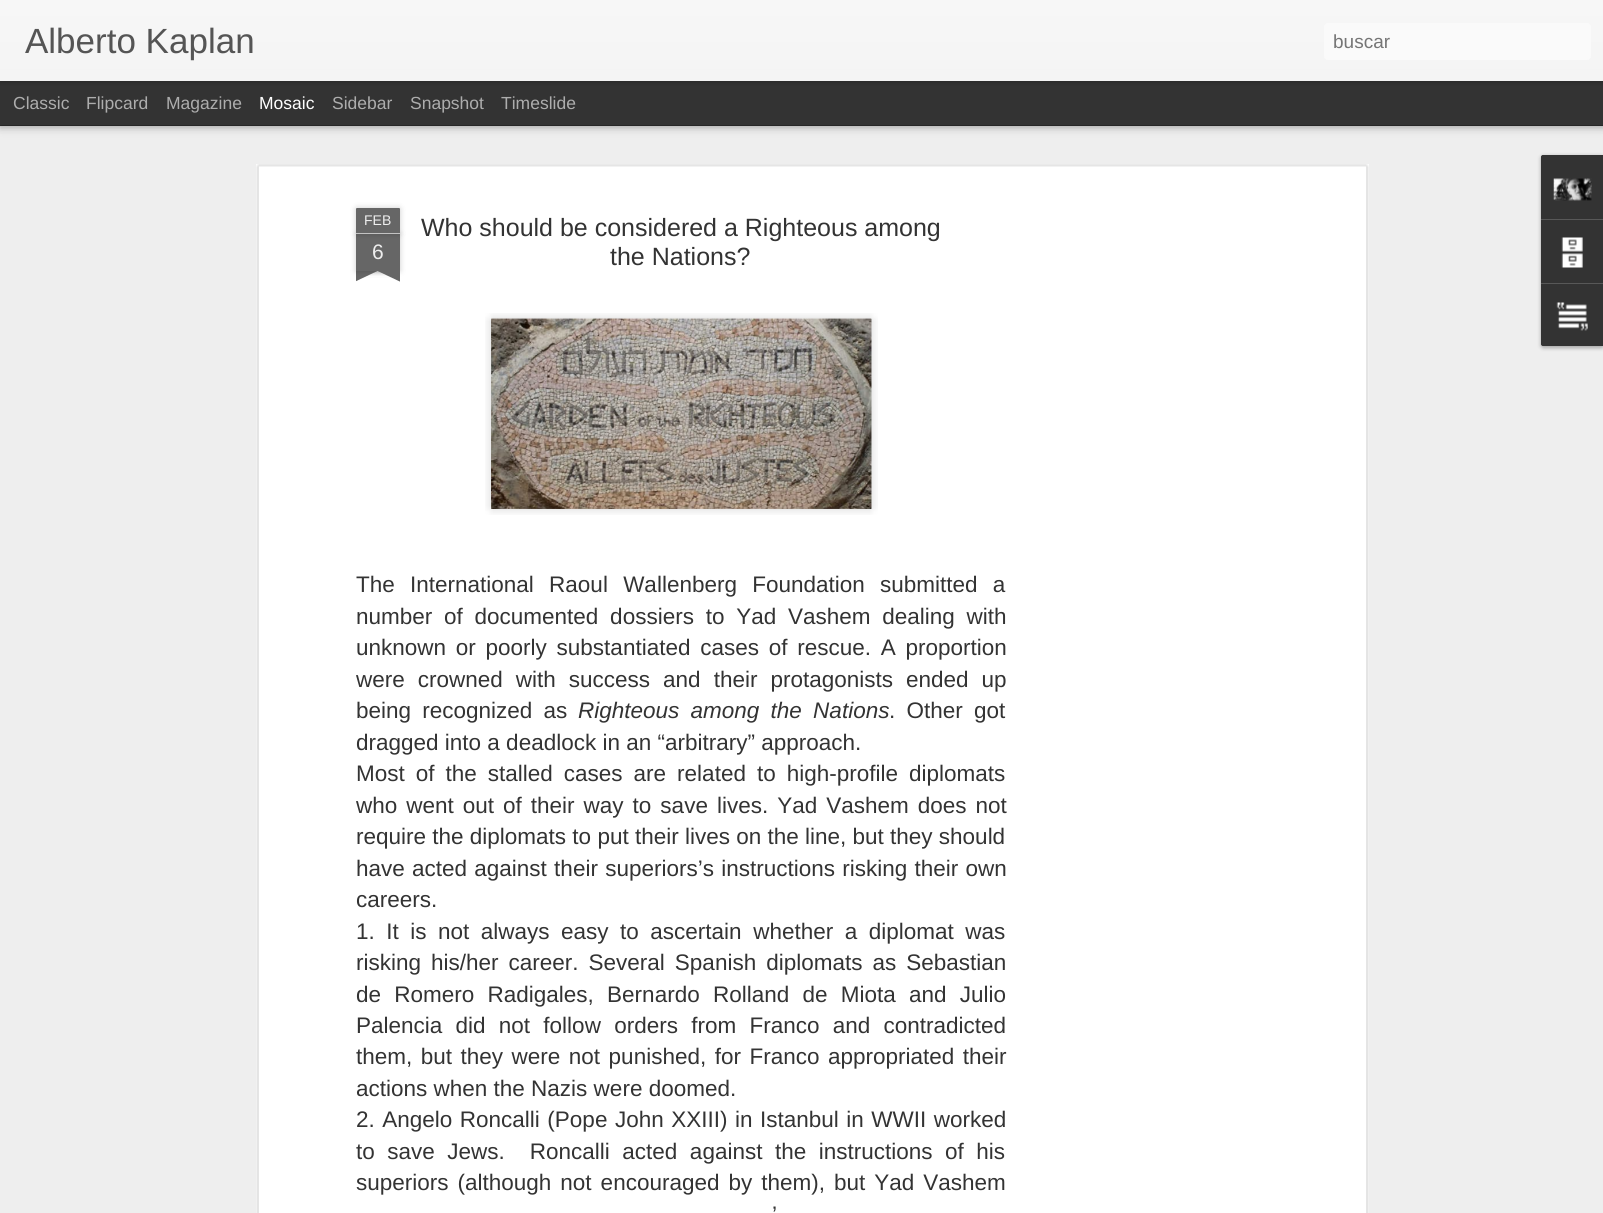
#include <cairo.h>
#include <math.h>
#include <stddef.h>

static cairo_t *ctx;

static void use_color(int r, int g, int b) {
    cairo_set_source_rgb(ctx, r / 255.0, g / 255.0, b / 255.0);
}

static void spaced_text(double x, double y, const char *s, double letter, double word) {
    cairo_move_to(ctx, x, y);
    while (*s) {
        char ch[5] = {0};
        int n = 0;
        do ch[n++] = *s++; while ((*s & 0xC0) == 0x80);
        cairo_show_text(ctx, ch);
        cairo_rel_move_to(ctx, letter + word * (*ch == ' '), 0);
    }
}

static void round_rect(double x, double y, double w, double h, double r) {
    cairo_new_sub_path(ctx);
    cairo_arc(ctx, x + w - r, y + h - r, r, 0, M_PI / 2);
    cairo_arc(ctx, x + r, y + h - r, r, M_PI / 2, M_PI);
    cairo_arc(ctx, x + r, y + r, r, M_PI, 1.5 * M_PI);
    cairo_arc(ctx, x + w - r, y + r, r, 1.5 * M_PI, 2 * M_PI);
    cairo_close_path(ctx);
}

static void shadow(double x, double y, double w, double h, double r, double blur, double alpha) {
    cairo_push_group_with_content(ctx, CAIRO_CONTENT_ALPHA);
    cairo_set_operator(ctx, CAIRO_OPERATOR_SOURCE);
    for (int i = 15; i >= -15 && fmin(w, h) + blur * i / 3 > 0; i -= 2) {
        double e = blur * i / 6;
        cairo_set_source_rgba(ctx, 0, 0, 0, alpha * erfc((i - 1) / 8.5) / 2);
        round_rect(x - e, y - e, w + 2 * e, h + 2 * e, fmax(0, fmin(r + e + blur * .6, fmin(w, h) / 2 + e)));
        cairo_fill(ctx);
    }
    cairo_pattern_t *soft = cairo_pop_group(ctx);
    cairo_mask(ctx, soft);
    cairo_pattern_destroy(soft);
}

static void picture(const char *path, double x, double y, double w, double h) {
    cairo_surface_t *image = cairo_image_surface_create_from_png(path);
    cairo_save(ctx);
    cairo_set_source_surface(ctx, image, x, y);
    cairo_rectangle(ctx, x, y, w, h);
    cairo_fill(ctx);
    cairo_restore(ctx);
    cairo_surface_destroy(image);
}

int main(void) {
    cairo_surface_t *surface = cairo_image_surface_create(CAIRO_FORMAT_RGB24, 1603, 1213);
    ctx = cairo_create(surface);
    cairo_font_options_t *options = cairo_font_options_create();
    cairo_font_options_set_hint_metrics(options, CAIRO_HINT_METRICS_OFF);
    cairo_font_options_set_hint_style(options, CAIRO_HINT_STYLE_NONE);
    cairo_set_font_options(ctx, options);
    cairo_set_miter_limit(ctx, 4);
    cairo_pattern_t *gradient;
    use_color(51, 51, 51);
    cairo_paint(ctx);
    use_color(238, 238, 238);
    cairo_rectangle(ctx, 0, 126, 1603, 1087);
    cairo_fill(ctx);
    use_color(0, 0, 0);
    shadow(0, 81, 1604, 44, 0, 5, 0.5);
    use_color(51, 51, 51);
    cairo_rectangle(ctx, 0, 81, 1603, 44);
    cairo_fill(ctx);
    use_color(0, 0, 0);
    shadow(0, 0, 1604, 81, 0, 3, 0.3);
    gradient = cairo_pattern_create_linear(0, 0, 0, 81);
    cairo_pattern_add_color_stop_rgba(gradient, 0, 0.969, 0.969, 0.969, 1);
    cairo_pattern_add_color_stop_rgba(gradient, 1, 0.957, 0.957, 0.957, 1);
    cairo_set_source(ctx, gradient);
    cairo_pattern_destroy(gradient);
    cairo_rectangle(ctx, 0, 0, 1603, 81);
    cairo_fill(ctx);
    cairo_select_font_face(ctx, "Liberation Sans", CAIRO_FONT_SLANT_NORMAL, CAIRO_FONT_WEIGHT_NORMAL);
    cairo_set_font_size(ctx, 35);
    use_color(85, 85, 85);
    cairo_move_to(ctx, 25, 53);
    cairo_show_text(ctx, "Alberto Kaplan");
    use_color(250, 250, 250);
    round_rect(1324, 23, 267, 37, 4);
    cairo_fill(ctx);
    cairo_set_font_size(ctx, 19);
    use_color(117, 117, 117);
    cairo_move_to(ctx, 1333, 48);
    cairo_show_text(ctx, "buscar");
    cairo_set_font_size(ctx, 17.5);
    use_color(173, 173, 173);
    cairo_move_to(ctx, 13, 109);
    cairo_show_text(ctx, "Classic");
    cairo_move_to(ctx, 86, 109);
    cairo_show_text(ctx, "Flipcard");
    cairo_move_to(ctx, 166, 109);
    cairo_show_text(ctx, "Magazine");
    use_color(255, 255, 255);
    cairo_move_to(ctx, 259, 109);
    cairo_show_text(ctx, "Mosaic");
    use_color(173, 173, 173);
    cairo_move_to(ctx, 332, 109);
    cairo_show_text(ctx, "Sidebar");
    cairo_move_to(ctx, 410, 109);
    cairo_show_text(ctx, "Snapshot");
    cairo_move_to(ctx, 501, 109);
    cairo_show_text(ctx, "Timeslide");
    use_color(255, 255, 255);
    cairo_rectangle(ctx, 256, 164, 1113, 1049);
    cairo_fill(ctx);
    picture("img1.png", 256, 164, 1113, 1049);
    use_color(0, 0, 0);
    shadow(356, 234, 44, 37, 0, 3, 0.2);
    use_color(102, 102, 102);
    cairo_rectangle(ctx, 356, 234, 44, 37);
    cairo_fill(ctx);
    use_color(0, 0, 0);
    shadow(356, 208, 44, 26, 1, 3, 0.2);
    use_color(102, 102, 102);
    cairo_new_path(ctx);
    cairo_move_to(ctx, 357, 208);
    cairo_line_to(ctx, 399, 208);
    cairo_curve_to(ctx, 399.5, 208, 400, 208.5, 400, 209);
    cairo_line_to(ctx, 400, 234);
    cairo_line_to(ctx, 356, 234);
    cairo_line_to(ctx, 356, 209);
    cairo_curve_to(ctx, 356, 208.5, 356.5, 208, 357, 208);
    cairo_close_path(ctx);
    cairo_fill(ctx);
    use_color(194, 194, 194);
    cairo_rectangle(ctx, 356, 233, 44, 1);
    cairo_fill(ctx);
    cairo_set_font_size(ctx, 14);
    use_color(238, 238, 238);
    cairo_move_to(ctx, 364, 225);
    cairo_show_text(ctx, "FEB");
    cairo_set_font_size(ctx, 21);
    cairo_move_to(ctx, 372, 259);
    cairo_show_text(ctx, "6");
    cairo_save(ctx);
    cairo_rectangle(ctx, 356, 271, 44, 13);
    cairo_clip(ctx);
    use_color(0, 0, 0);
    shadow(345, 259, 63, 12, 0, 3, 0.2);
    cairo_restore(ctx);
    cairo_save(ctx);
    cairo_rectangle(ctx, 356, 271, 44, 13);
    cairo_clip(ctx);
    use_color(102, 102, 102);
    cairo_new_path(ctx);
    cairo_move_to(ctx, 345, 273);
    cairo_line_to(ctx, 401, 246);
    cairo_line_to(ctx, 407, 257);
    cairo_line_to(ctx, 350, 284);
    cairo_close_path(ctx);
    cairo_fill(ctx);
    cairo_restore(ctx);
    cairo_save(ctx);
    cairo_rectangle(ctx, 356, 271, 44, 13);
    cairo_clip(ctx);
    use_color(0, 0, 0);
    shadow(349, 259, 62, 12, 0, 3, 0.2);
    cairo_restore(ctx);
    cairo_save(ctx);
    cairo_rectangle(ctx, 356, 271, 44, 13);
    cairo_clip(ctx);
    use_color(102, 102, 102);
    cairo_new_path(ctx);
    cairo_move_to(ctx, 354, 246);
    cairo_line_to(ctx, 410, 273);
    cairo_line_to(ctx, 405, 284);
    cairo_line_to(ctx, 348, 257);
    cairo_close_path(ctx);
    cairo_fill(ctx);
    cairo_restore(ctx);
    cairo_set_font_size(ctx, 25);
    use_color(51, 51, 51);
    cairo_move_to(ctx, 421, 236);
    cairo_show_text(ctx, "Who should be considered a Righteous among");
    cairo_move_to(ctx, 610, 265);
    cairo_show_text(ctx, "the Nations?");
    picture("img2.png", 485, 313, 393, 202);
    picture("img3.png", 491, 318, 381, 191);
    cairo_set_font_size(ctx, 22.5);
    spaced_text(356, 592, "The International Raoul Wallenberg Foundation submitted a", 0, 9);
    spaced_text(356, 624, "number of documented dossiers to Yad Vashem dealing with", 0, 5.5);
    spaced_text(356, 655, "unknown or poorly substantiated cases of rescue. A proportion", 0, 3.5);
    spaced_text(356, 687, "were crowned with success and their protagonists ended up", 0, 6.75);
    spaced_text(356, 718, "being recognized as", 0, 5);
    cairo_select_font_face(ctx, "Liberation Sans", CAIRO_FONT_SLANT_ITALIC, CAIRO_FONT_WEIGHT_NORMAL);
    spaced_text(578, 718, "Righteous among the Nations", 0, 5);
    cairo_select_font_face(ctx, "Liberation Sans", CAIRO_FONT_SLANT_NORMAL, CAIRO_FONT_WEIGHT_NORMAL);
    spaced_text(889, 718, ". Other got", 0, 5);
    cairo_move_to(ctx, 356, 750);
    cairo_show_text(ctx, "dragged into a deadlock in an “arbitrary” approach.");
    spaced_text(356, 781, "Most of the stalled cases are related to high-profile diplomats", 0, 4.75);
    spaced_text(356, 813, "who went out of their way to save lives. Yad Vashem does not", 0, 2.75);
    cairo_move_to(ctx, 356, 844);
    cairo_show_text(ctx, "require the diplomats to put their lives on the line, but they should");
    spaced_text(356, 876, "have acted against their superiors’s instructions risking their own", 0, 1);
    cairo_move_to(ctx, 356, 907);
    cairo_show_text(ctx, "careers.");
    spaced_text(356, 939, "1. It is not always easy to ascertain whether a diplomat was", 0, 5.25);
    spaced_text(356, 970, "risking his/her career. Several Spanish diplomats as Sebastian", 0, 3.75);
    spaced_text(356, 1002, "de Romero Radigales, Bernardo Rolland de Miota and Julio", 0, 7);
    spaced_text(356, 1033, "Palencia did not follow orders from Franco and contradicted", 0, 7);
    spaced_text(356, 1064, "them, but they were not punished, for Franco appropriated their", 0, 2.25);
    cairo_move_to(ctx, 356, 1096);
    cairo_show_text(ctx, "actions when the Nazis were doomed.");
    spaced_text(356, 1127, "2. Angelo Roncalli (Pope John XXIII) in Istanbul in WWII worked", 0, 1.25);
    spaced_text(356, 1159, "to save Jews.  Roncalli acted against the instructions of his", 0, 6.25);
    spaced_text(356, 1190, "superiors (although not encouraged by them), but Yad Vashem", 0, 2.75);
    spaced_text(772, 1222, "’", 0, 3);
    use_color(0, 0, 0);
    shadow(1541, 156, 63, 192, 2.5, 2, 0.3);
    use_color(51, 51, 51);
    cairo_new_path(ctx);
    cairo_move_to(ctx, 1543.5, 155);
    cairo_line_to(ctx, 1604, 155);
    cairo_line_to(ctx, 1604, 346);
    cairo_line_to(ctx, 1543.5, 346);
    cairo_curve_to(ctx, 1542, 346, 1541, 345, 1541, 343.5);
    cairo_line_to(ctx, 1541, 157.5);
    cairo_curve_to(ctx, 1541, 156, 1542, 155, 1543.5, 155);
    cairo_close_path(ctx);
    cairo_fill(ctx);
    cairo_new_path(ctx);
    cairo_move_to(ctx, 1543.5, 155);
    cairo_line_to(ctx, 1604, 155);
    cairo_line_to(ctx, 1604, 219);
    cairo_line_to(ctx, 1541, 219);
    cairo_line_to(ctx, 1541, 157.5);
    cairo_curve_to(ctx, 1541, 156, 1542, 155, 1543.5, 155);
    cairo_close_path(ctx);
    cairo_fill(ctx);
    picture("img4.png", 1553, 178, 39, 23);
    use_color(88, 88, 88);
    cairo_rectangle(ctx, 1541, 219, 62, 1);
    cairo_fill(ctx);
    picture("img5.png", 1561, 237, 22, 31);
    use_color(51, 51, 51);
    cairo_new_path(ctx);
    cairo_move_to(ctx, 1541, 283);
    cairo_line_to(ctx, 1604, 283);
    cairo_line_to(ctx, 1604, 346);
    cairo_line_to(ctx, 1543.5, 346);
    cairo_curve_to(ctx, 1542, 346, 1541, 345, 1541, 343.5);
    cairo_close_path(ctx);
    cairo_fill(ctx);
    use_color(88, 88, 88);
    cairo_rectangle(ctx, 1541, 283, 62, 1);
    cairo_fill(ctx);
    picture("img6.png", 1556, 302, 32, 29);
    cairo_surface_write_to_png(surface, "result.png");
    cairo_font_options_destroy(options);
    cairo_destroy(ctx);
    cairo_surface_destroy(surface);
    return 0;
}
